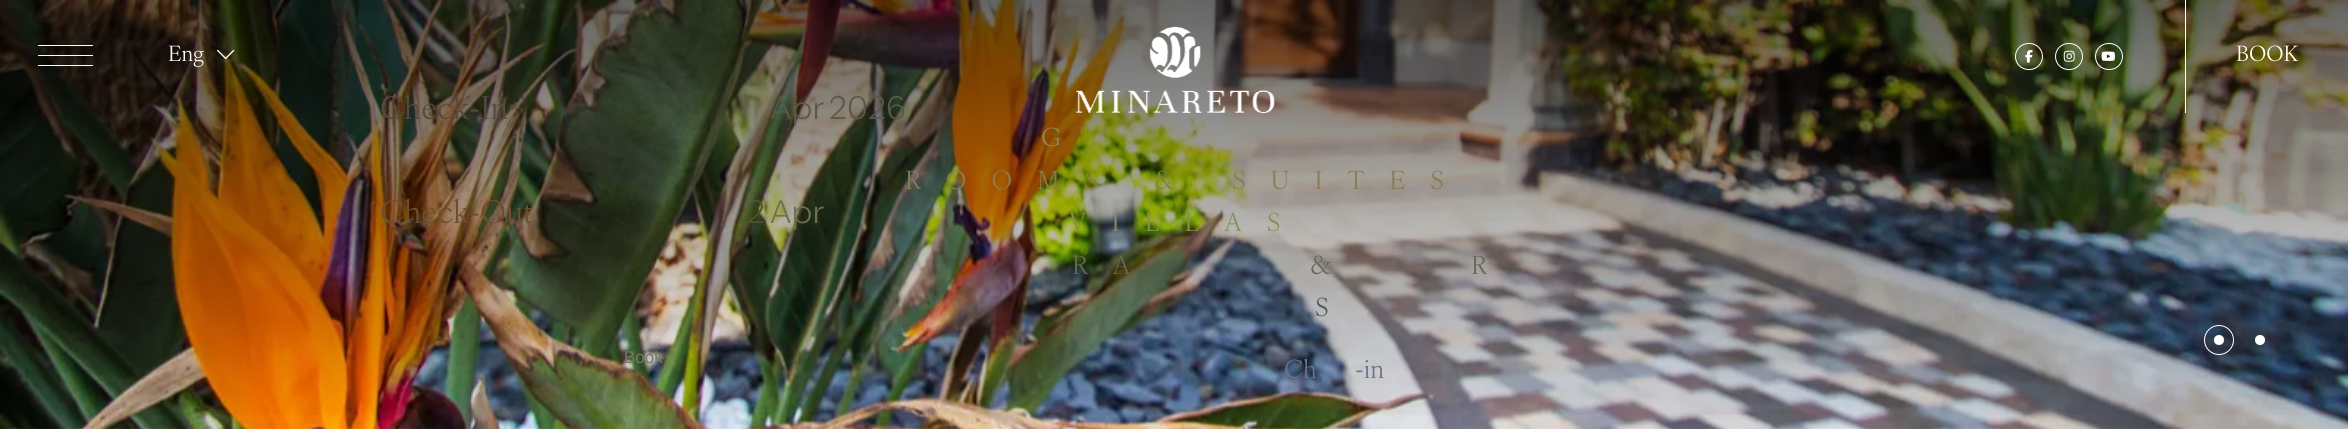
#include <cairo.h>
#include <math.h>
#include <stddef.h>

static cairo_t *ctx;

static void use_color(int r, int g, int b) {
    cairo_set_source_rgb(ctx, r / 255.0, g / 255.0, b / 255.0);
}

static void spaced_text(double x, double y, const char *s, double letter, double word) {
    cairo_move_to(ctx, x, y);
    while (*s) {
        char ch[5] = {0};
        int n = 0;
        do ch[n++] = *s++; while ((*s & 0xC0) == 0x80);
        cairo_show_text(ctx, ch);
        cairo_rel_move_to(ctx, letter + word * (*ch == ' '), 0);
    }
}

static void round_rect(double x, double y, double w, double h, double r) {
    cairo_new_sub_path(ctx);
    cairo_arc(ctx, x + w - r, y + h - r, r, 0, M_PI / 2);
    cairo_arc(ctx, x + r, y + h - r, r, M_PI / 2, M_PI);
    cairo_arc(ctx, x + r, y + r, r, M_PI, 1.5 * M_PI);
    cairo_arc(ctx, x + w - r, y + r, r, 1.5 * M_PI, 2 * M_PI);
    cairo_close_path(ctx);
}

static void picture(const char *path, double x, double y, double w, double h) {
    cairo_surface_t *image = cairo_image_surface_create_from_png(path);
    cairo_save(ctx);
    cairo_set_source_surface(ctx, image, x, y);
    cairo_rectangle(ctx, x, y, w, h);
    cairo_fill(ctx);
    cairo_restore(ctx);
    cairo_surface_destroy(image);
}

int main(void) {
    cairo_surface_t *surface = cairo_image_surface_create(CAIRO_FORMAT_RGB24, 2348, 429);
    ctx = cairo_create(surface);
    cairo_font_options_t *options = cairo_font_options_create();
    cairo_font_options_set_hint_metrics(options, CAIRO_HINT_METRICS_OFF);
    cairo_font_options_set_hint_style(options, CAIRO_HINT_STYLE_NONE);
    cairo_set_font_options(ctx, options);
    cairo_set_miter_limit(ctx, 4);
    cairo_pattern_t *gradient;
    use_color(255, 255, 255);
    cairo_paint(ctx);
    picture("img1.png", 0, 0, 2348, 429);
    gradient = cairo_pattern_create_linear(1174, 0, 1174, 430);
    cairo_pattern_add_color_stop_rgba(gradient, 0, 0, 0, 0, 0.6);
    cairo_pattern_add_color_stop_rgba(gradient, 1, 0, 0, 0, 0);
    cairo_set_source(ctx, gradient);
    cairo_pattern_destroy(gradient);
    cairo_rectangle(ctx, 0, 0, 2348, 415);
    cairo_fill(ctx);
    cairo_arc(ctx, 2219, 340, 14.5, 0, 2 * M_PI);
    use_color(255, 255, 255);
    cairo_set_line_width(ctx, 1);
    cairo_stroke(ctx);
    cairo_arc(ctx, 2219, 340, 5, 0, 2 * M_PI);
    cairo_fill(ctx);
    cairo_arc(ctx, 2260, 340, 5, 0, 2 * M_PI);
    cairo_fill(ctx);
    cairo_rectangle(ctx, 38, 45, 55, 1);
    cairo_fill(ctx);
    cairo_rectangle(ctx, 38, 55, 55, 1);
    cairo_fill(ctx);
    cairo_rectangle(ctx, 38, 65, 55, 1);
    cairo_fill(ctx);
    cairo_select_font_face(ctx, "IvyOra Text", CAIRO_FONT_SLANT_NORMAL, CAIRO_FONT_WEIGHT_NORMAL);
    cairo_set_font_size(ctx, 21);
    cairo_move_to(ctx, 168, 61);
    cairo_show_text(ctx, "Eng");
    picture("img2.png", 217, 49, 18, 10);
    picture("img3.png", 1076, 26, 199, 88);
    round_rect(2015.5, 43.5, 27, 26, 13);
    cairo_stroke(ctx);
    picture("img4.png", 2025, 50, 8, 13);
    round_rect(2055.5, 43.5, 27, 26, 13);
    cairo_stroke(ctx);
    picture("img5.png", 2063, 50, 12, 12);
    round_rect(2095.5, 43.5, 27, 26, 13);
    cairo_stroke(ctx);
    picture("img6.png", 2101, 51, 14, 10);
    cairo_rectangle(ctx, 2185, 0, 1, 113);
    cairo_fill(ctx);
    cairo_move_to(ctx, 2236, 61);
    cairo_show_text(ctx, "BOOK");
    cairo_set_font_size(ctx, 31.25);
    use_color(86, 74, 58);
    cairo_move_to(ctx, 380, 119);
    cairo_show_text(ctx, "Check-In");
    cairo_select_font_face(ctx, "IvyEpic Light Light", CAIRO_FONT_SLANT_NORMAL, CAIRO_FONT_WEIGHT_NORMAL);
    use_color(90, 89, 72);
    cairo_move_to(ctx, 770, 119);
    cairo_show_text(ctx, "Apr");
    cairo_move_to(ctx, 829, 119);
    cairo_show_text(ctx, "2026");
    cairo_select_font_face(ctx, "IvyOra Text", CAIRO_FONT_SLANT_NORMAL, CAIRO_FONT_WEIGHT_NORMAL);
    use_color(109, 79, 48);
    cairo_move_to(ctx, 380, 223);
    cairo_show_text(ctx, "Check-Out");
    cairo_select_font_face(ctx, "IvyEpic Light Light", CAIRO_FONT_SLANT_NORMAL, CAIRO_FONT_WEIGHT_NORMAL);
    use_color(76, 85, 44);
    cairo_move_to(ctx, 747, 223);
    cairo_show_text(ctx, "2");
    use_color(110, 113, 80);
    cairo_move_to(ctx, 770, 223);
    cairo_show_text(ctx, "Apr");
    cairo_select_font_face(ctx, "Liberation Sans", CAIRO_FONT_SLANT_NORMAL, CAIRO_FONT_WEIGHT_NORMAL);
    cairo_set_font_size(ctx, 17);
    use_color(112, 122, 101);
    cairo_move_to(ctx, 624, 363);
    cairo_show_text(ctx, "Book");
    cairo_select_font_face(ctx, "IvyOra Text", CAIRO_FONT_SLANT_NORMAL, CAIRO_FONT_WEIGHT_NORMAL);
    cairo_set_font_size(ctx, 25);
    use_color(144, 133, 92);
    spaced_text(1041, 146, "G", 25, 0);
    use_color(136, 125, 76);
    spaced_text(905, 189, "ROOMS & SUITES", 25, 0);
    use_color(132, 144, 88);
    spaced_text(1069, 231, "VILLAS", 25, 0);
    use_color(103, 102, 90);
    spaced_text(1072, 274, "RA", 25, 0);
    spaced_text(1310, 274, "&", 25, 0);
    spaced_text(1471, 274, "R", 25, 0);
    use_color(82, 88, 89);
    spaced_text(1315, 316, "S", 25, 0);
    use_color(101, 118, 140);
    cairo_move_to(ctx, 1284, 378);
    cairo_show_text(ctx, "Ch");
    cairo_move_to(ctx, 1355, 378);
    cairo_show_text(ctx, "-in");
    cairo_surface_write_to_png(surface, "result.png");
    cairo_font_options_destroy(options);
    cairo_destroy(ctx);
    cairo_surface_destroy(surface);
    return 0;
}
